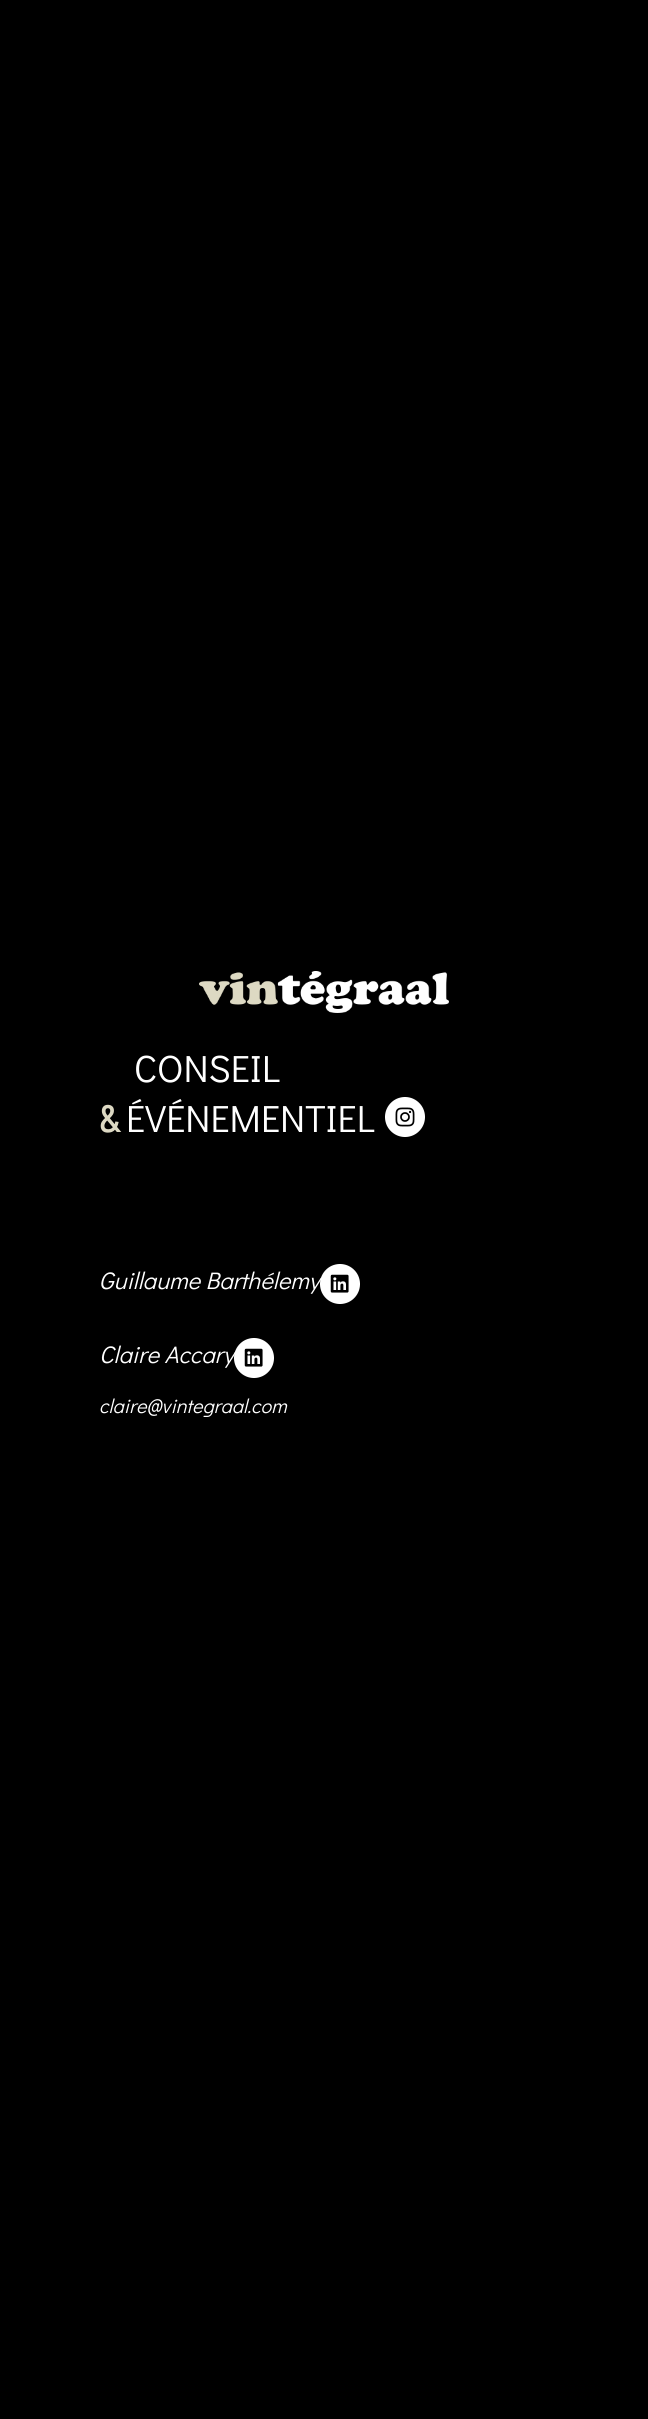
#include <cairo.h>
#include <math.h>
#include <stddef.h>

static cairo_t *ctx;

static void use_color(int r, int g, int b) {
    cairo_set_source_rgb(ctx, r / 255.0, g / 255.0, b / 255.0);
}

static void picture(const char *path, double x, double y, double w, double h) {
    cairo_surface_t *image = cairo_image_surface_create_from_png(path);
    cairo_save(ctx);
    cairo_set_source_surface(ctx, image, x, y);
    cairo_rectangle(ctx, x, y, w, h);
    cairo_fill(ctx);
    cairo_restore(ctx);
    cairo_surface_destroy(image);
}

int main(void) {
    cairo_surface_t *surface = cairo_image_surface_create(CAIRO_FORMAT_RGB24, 648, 2419);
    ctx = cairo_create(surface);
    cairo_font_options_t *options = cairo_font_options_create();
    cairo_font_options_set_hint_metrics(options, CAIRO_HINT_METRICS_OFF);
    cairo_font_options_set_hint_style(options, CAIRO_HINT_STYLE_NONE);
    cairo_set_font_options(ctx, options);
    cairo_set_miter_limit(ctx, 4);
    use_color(0, 0, 0);
    cairo_paint(ctx);
    picture("img1.png", 199, 971, 250, 42);
    cairo_select_font_face(ctx, "Didact Gothic", CAIRO_FONT_SLANT_NORMAL, CAIRO_FONT_WEIGHT_NORMAL);
    cairo_set_font_size(ctx, 38);
    use_color(255, 255, 255);
    cairo_move_to(ctx, 134, 1082);
    cairo_show_text(ctx, "CONSEIL");
    cairo_select_font_face(ctx, "Didact Gothic", CAIRO_FONT_SLANT_NORMAL, CAIRO_FONT_WEIGHT_BOLD);
    use_color(221, 217, 195);
    cairo_move_to(ctx, 99, 1132);
    cairo_show_text(ctx, "&");
    cairo_select_font_face(ctx, "Didact Gothic", CAIRO_FONT_SLANT_NORMAL, CAIRO_FONT_WEIGHT_NORMAL);
    use_color(255, 255, 255);
    cairo_move_to(ctx, 126, 1132);
    cairo_show_text(ctx, "ÉVÉNEMENTIEL");
    picture("img2.png", 385, 1097, 40, 40);
    cairo_select_font_face(ctx, "Didact Gothic", CAIRO_FONT_SLANT_ITALIC, CAIRO_FONT_WEIGHT_NORMAL);
    cairo_set_font_size(ctx, 24);
    cairo_move_to(ctx, 99, 1289);
    cairo_show_text(ctx, "Guillaume Barthélemy");
    picture("img3.png", 320, 1264, 40, 40);
    cairo_move_to(ctx, 99, 1363);
    cairo_show_text(ctx, "Claire Accary");
    picture("img4.png", 234, 1338, 40, 40);
    cairo_set_font_size(ctx, 20);
    cairo_move_to(ctx, 99, 1413);
    cairo_show_text(ctx, "claire@vintegraal.com");
    cairo_surface_write_to_png(surface, "result.png");
    cairo_font_options_destroy(options);
    cairo_destroy(ctx);
    cairo_surface_destroy(surface);
    return 0;
}
